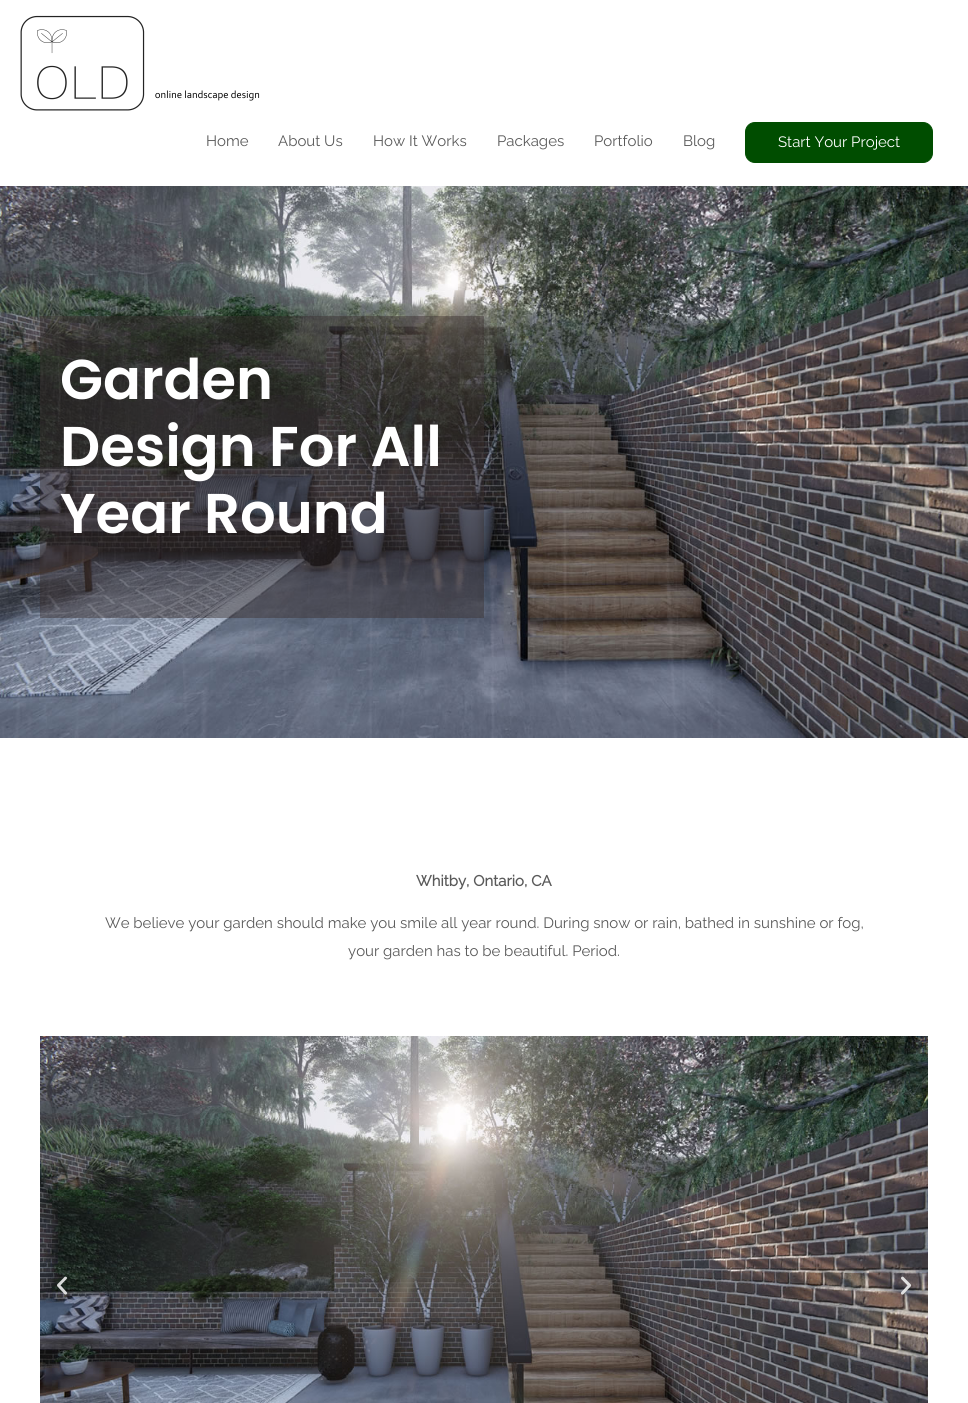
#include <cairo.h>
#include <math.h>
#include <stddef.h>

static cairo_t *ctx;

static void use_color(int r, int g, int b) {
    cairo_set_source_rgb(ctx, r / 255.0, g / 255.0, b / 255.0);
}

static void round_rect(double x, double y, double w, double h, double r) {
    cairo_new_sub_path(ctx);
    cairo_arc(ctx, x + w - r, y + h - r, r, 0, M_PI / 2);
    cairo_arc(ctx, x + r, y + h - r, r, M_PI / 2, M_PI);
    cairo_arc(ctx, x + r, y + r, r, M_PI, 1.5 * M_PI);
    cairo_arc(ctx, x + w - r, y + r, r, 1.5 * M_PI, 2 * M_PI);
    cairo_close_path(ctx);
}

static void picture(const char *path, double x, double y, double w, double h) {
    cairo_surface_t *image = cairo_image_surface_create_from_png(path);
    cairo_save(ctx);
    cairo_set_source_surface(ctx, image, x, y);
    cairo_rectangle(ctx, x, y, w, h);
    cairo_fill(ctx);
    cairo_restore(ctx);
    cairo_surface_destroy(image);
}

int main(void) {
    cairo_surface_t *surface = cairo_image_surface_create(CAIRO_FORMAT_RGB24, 968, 1403);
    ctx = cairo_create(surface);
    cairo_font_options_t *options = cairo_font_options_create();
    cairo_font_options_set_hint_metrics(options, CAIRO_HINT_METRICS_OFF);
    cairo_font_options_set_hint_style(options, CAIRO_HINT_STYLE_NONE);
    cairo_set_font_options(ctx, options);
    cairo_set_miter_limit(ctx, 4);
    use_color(255, 255, 255);
    cairo_paint(ctx);
    picture("img1.png", 20, 15, 240, 96);
    cairo_select_font_face(ctx, "Raleway Thin", CAIRO_FONT_SLANT_NORMAL, CAIRO_FONT_WEIGHT_NORMAL);
    cairo_set_font_size(ctx, 15);
    use_color(90, 90, 90);
    cairo_move_to(ctx, 206, 146);
    cairo_show_text(ctx, "Home");
    cairo_move_to(ctx, 278, 146);
    cairo_show_text(ctx, "About Us");
    cairo_move_to(ctx, 373, 146);
    cairo_show_text(ctx, "How It Works");
    cairo_move_to(ctx, 497, 146);
    cairo_show_text(ctx, "Packages");
    cairo_move_to(ctx, 594, 146);
    cairo_show_text(ctx, "Portfolio");
    cairo_move_to(ctx, 683, 146);
    cairo_show_text(ctx, "Blog");
    use_color(0, 77, 0);
    round_rect(745.5, 122.5, 187, 40, 9.5);
    cairo_fill_preserve(ctx);
    cairo_set_line_width(ctx, 1);
    cairo_stroke(ctx);
    use_color(255, 255, 255);
    cairo_move_to(ctx, 778, 147);
    cairo_show_text(ctx, "Start Your Project");
    picture("img2.png", 0, 186, 968, 552);
    cairo_set_source_rgba(ctx, 0.231, 0.192, 0.192, 0.46);
    cairo_rectangle(ctx, 40, 316, 444, 232);
    cairo_fill(ctx);
    cairo_select_font_face(ctx, "Poppins SemiBold", CAIRO_FONT_SLANT_NORMAL, CAIRO_FONT_WEIGHT_NORMAL);
    cairo_set_font_size(ctx, 56);
    use_color(255, 255, 255);
    cairo_move_to(ctx, 60, 399);
    cairo_show_text(ctx, "Garden");
    cairo_move_to(ctx, 60, 466);
    cairo_show_text(ctx, "Design For All");
    cairo_move_to(ctx, 60, 533);
    cairo_show_text(ctx, "Year Round");
    cairo_set_source_rgba(ctx, 0.231, 0.192, 0.192, 0.46);
    cairo_rectangle(ctx, 40, 548, 444, 70);
    cairo_fill(ctx);
    cairo_select_font_face(ctx, "Raleway", CAIRO_FONT_SLANT_NORMAL, CAIRO_FONT_WEIGHT_BOLD);
    cairo_set_font_size(ctx, 15);
    use_color(90, 90, 90);
    cairo_move_to(ctx, 416, 886);
    cairo_show_text(ctx, "Whitby, Ontario, CA");
    cairo_select_font_face(ctx, "Raleway Thin", CAIRO_FONT_SLANT_NORMAL, CAIRO_FONT_WEIGHT_NORMAL);
    cairo_move_to(ctx, 105, 928);
    cairo_show_text(ctx, "We believe your garden should make you smile all year round. During snow or rain, bathed in sunshine or fog,");
    cairo_move_to(ctx, 348, 956);
    cairo_show_text(ctx, "your garden has to be beautiful. Period.");
    picture("img3.png", 40, 1036, 888, 367);
    picture("img4.png", 57, 1276, 11, 19);
    picture("img5.png", 900, 1276, 12, 19);
    cairo_surface_write_to_png(surface, "result.png");
    cairo_font_options_destroy(options);
    cairo_destroy(ctx);
    cairo_surface_destroy(surface);
    return 0;
}
